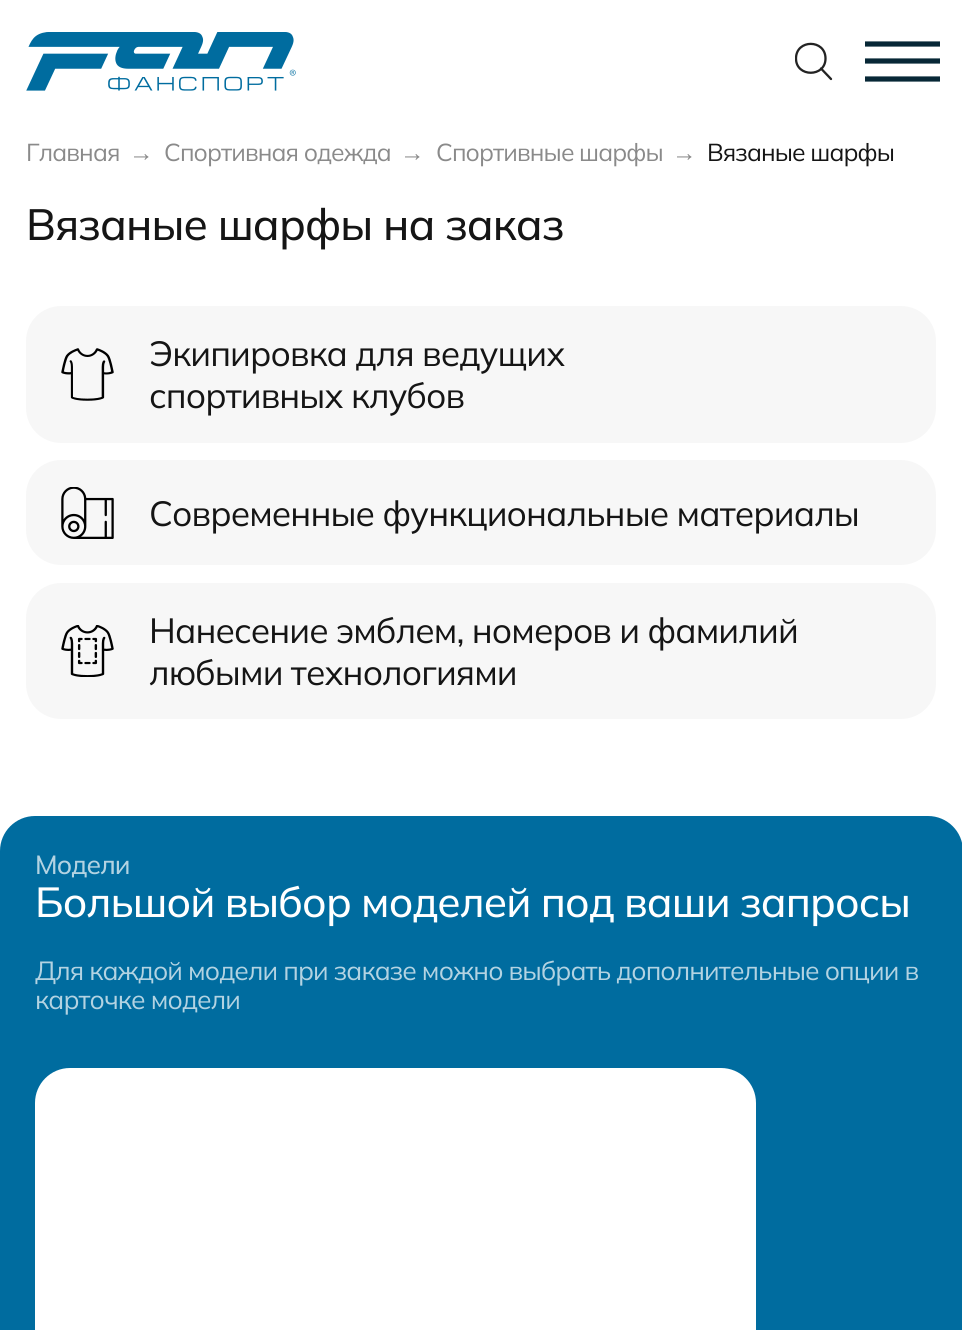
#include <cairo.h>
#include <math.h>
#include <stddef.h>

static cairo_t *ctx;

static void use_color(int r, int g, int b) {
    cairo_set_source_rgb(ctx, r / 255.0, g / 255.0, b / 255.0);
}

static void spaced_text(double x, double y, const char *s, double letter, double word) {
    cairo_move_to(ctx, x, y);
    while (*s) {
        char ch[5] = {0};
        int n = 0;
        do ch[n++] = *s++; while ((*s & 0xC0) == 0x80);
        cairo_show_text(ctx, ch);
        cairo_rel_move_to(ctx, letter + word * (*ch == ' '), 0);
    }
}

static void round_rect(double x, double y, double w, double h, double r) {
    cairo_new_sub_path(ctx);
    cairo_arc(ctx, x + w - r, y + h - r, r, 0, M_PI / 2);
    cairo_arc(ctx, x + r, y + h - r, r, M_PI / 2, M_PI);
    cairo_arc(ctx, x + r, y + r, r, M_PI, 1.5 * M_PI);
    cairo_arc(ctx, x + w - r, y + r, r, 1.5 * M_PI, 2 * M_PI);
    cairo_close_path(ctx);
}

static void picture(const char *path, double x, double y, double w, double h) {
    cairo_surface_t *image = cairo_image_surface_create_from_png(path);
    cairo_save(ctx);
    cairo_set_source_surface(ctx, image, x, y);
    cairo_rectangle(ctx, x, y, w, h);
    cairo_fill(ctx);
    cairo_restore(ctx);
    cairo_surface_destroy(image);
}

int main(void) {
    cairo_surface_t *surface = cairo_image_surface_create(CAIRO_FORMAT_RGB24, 962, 1330);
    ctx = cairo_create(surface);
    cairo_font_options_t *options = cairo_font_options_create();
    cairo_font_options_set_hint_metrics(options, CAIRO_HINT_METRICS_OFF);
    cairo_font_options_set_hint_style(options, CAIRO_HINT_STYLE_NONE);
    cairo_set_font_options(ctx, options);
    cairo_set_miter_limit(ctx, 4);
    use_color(255, 255, 255);
    cairo_paint(ctx);
    picture("img1.png", 26, 32, 270, 59);
    cairo_save(ctx);
    cairo_rectangle(ctx, 795, 42, 38, 39);
    cairo_clip(ctx);
    cairo_new_path(ctx);
    cairo_move_to(ctx, 821, 68.5);
    cairo_line_to(ctx, 831, 79);
    cairo_move_to(ctx, 825.5, 58.5);
    cairo_curve_to(ctx, 825.5, 77.5, 796, 77.5, 796, 58.5);
    cairo_curve_to(ctx, 796, 39, 825.5, 39, 825.5, 58.5);
    cairo_close_path(ctx);
    use_color(35, 35, 35);
    cairo_set_line_width(ctx, 2.3);
    cairo_set_line_cap(ctx, CAIRO_LINE_CAP_ROUND);
    cairo_set_line_join(ctx, CAIRO_LINE_JOIN_ROUND);
    cairo_stroke(ctx);
    cairo_restore(ctx);
    cairo_save(ctx);
    cairo_rectangle(ctx, 865, 40, 75, 42);
    cairo_clip(ctx);
    cairo_new_path(ctx);
    cairo_move_to(ctx, 864.5, 44);
    cairo_line_to(ctx, 940, 44);
    use_color(7, 39, 54);
    cairo_set_line_width(ctx, 5.2);
    cairo_stroke(ctx);
    cairo_new_path(ctx);
    cairo_move_to(ctx, 864.5, 61);
    cairo_line_to(ctx, 940, 61);
    cairo_stroke(ctx);
    cairo_new_path(ctx);
    cairo_move_to(ctx, 864.5, 79);
    cairo_line_to(ctx, 940, 79);
    cairo_stroke(ctx);
    cairo_restore(ctx);
    cairo_select_font_face(ctx, "Mulish", CAIRO_FONT_SLANT_NORMAL, CAIRO_FONT_WEIGHT_NORMAL);
    cairo_set_font_size(ctx, 24.5);
    use_color(138, 138, 138);
    spaced_text(26, 161, "Главная", -0.88, 0);
    cairo_select_font_face(ctx, "Liberation Sans", CAIRO_FONT_SLANT_NORMAL, CAIRO_FONT_WEIGHT_NORMAL);
    spaced_text(129, 161, "→", -0.88, 0);
    cairo_select_font_face(ctx, "Mulish", CAIRO_FONT_SLANT_NORMAL, CAIRO_FONT_WEIGHT_NORMAL);
    spaced_text(164, 161, "Спортивная одежда", -0.88, 0);
    cairo_select_font_face(ctx, "Liberation Sans", CAIRO_FONT_SLANT_NORMAL, CAIRO_FONT_WEIGHT_NORMAL);
    spaced_text(400, 161, "→", -0.88, 0);
    cairo_select_font_face(ctx, "Mulish", CAIRO_FONT_SLANT_NORMAL, CAIRO_FONT_WEIGHT_NORMAL);
    spaced_text(436, 161, "Спортивные шарфы", -0.88, 0);
    cairo_select_font_face(ctx, "Liberation Sans", CAIRO_FONT_SLANT_NORMAL, CAIRO_FONT_WEIGHT_NORMAL);
    spaced_text(672, 161, "→", -0.88, 0);
    cairo_select_font_face(ctx, "Mulish", CAIRO_FONT_SLANT_NORMAL, CAIRO_FONT_WEIGHT_NORMAL);
    use_color(21, 21, 21);
    spaced_text(707, 161, "Вязаные шарфы", -0.88, 0);
    cairo_select_font_face(ctx, "Mulish Medium", CAIRO_FONT_SLANT_NORMAL, CAIRO_FONT_WEIGHT_NORMAL);
    cairo_set_font_size(ctx, 43.75);
    spaced_text(26, 240, "Вязаные шарфы на заказ", -0.88, 0);
    use_color(247, 247, 247);
    round_rect(26, 306, 910, 137, 35);
    cairo_fill(ctx);
    picture("img2.png", 61, 348, 53, 53);
    cairo_select_font_face(ctx, "Mulish", CAIRO_FONT_SLANT_NORMAL, CAIRO_FONT_WEIGHT_NORMAL);
    cairo_set_font_size(ctx, 35);
    use_color(21, 21, 21);
    spaced_text(149, 366, "Экипировка для ведущих", -0.88, 0);
    spaced_text(149, 408, "спортивных клубов", -0.88, 0);
    use_color(247, 247, 247);
    round_rect(26, 460, 910, 105, 35);
    cairo_fill(ctx);
    picture("img3.png", 61, 487, 53, 52);
    use_color(21, 21, 21);
    spaced_text(149, 526, "Современные функциональные материалы", -0.88, 0);
    use_color(247, 247, 247);
    round_rect(26, 583, 910, 136, 35);
    cairo_fill(ctx);
    picture("img4.png", 61, 625, 53, 52);
    use_color(21, 21, 21);
    spaced_text(149, 643, "Нанесение эмблем, номеров и фамилий", -0.88, 0);
    spaced_text(149, 685, "любыми технологиями", -0.88, 0);
    use_color(0, 108, 159);
    round_rect(0, 816, 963, 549, 35);
    cairo_fill(ctx);
    cairo_select_font_face(ctx, "Mulish Medium", CAIRO_FONT_SLANT_NORMAL, CAIRO_FONT_WEIGHT_NORMAL);
    cairo_set_font_size(ctx, 26.25);
    use_color(179, 211, 226);
    spaced_text(35, 874, "Модели", -0.88, 0);
    cairo_set_font_size(ctx, 42);
    use_color(255, 255, 255);
    spaced_text(35, 917, "Большой выбор моделей под ваши запросы", -0.88, 0);
    cairo_select_font_face(ctx, "Mulish", CAIRO_FONT_SLANT_NORMAL, CAIRO_FONT_WEIGHT_NORMAL);
    cairo_set_font_size(ctx, 26.25);
    use_color(179, 211, 226);
    spaced_text(35, 980, "Для каждой модели при заказе можно выбрать дополнительные опции в", -0.88, 0);
    spaced_text(35, 1009, "карточке модели", -0.88, 0);
    use_color(255, 255, 255);
    round_rect(35, 1068, 721, 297, 35);
    cairo_fill(ctx);
    cairo_surface_write_to_png(surface, "result.png");
    cairo_font_options_destroy(options);
    cairo_destroy(ctx);
    cairo_surface_destroy(surface);
    return 0;
}
